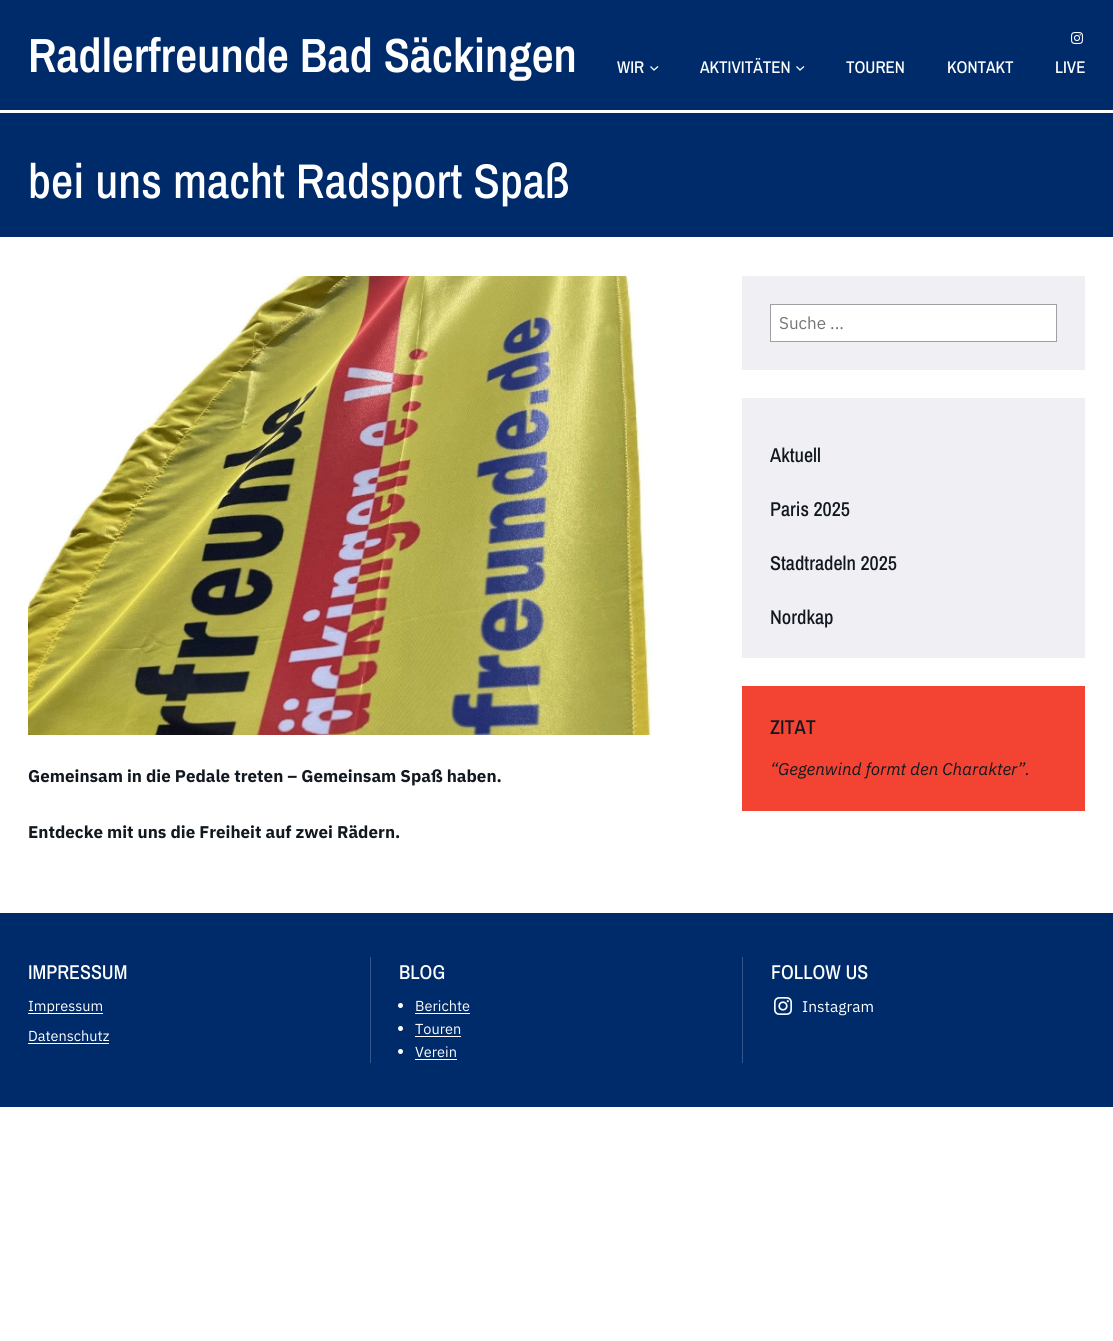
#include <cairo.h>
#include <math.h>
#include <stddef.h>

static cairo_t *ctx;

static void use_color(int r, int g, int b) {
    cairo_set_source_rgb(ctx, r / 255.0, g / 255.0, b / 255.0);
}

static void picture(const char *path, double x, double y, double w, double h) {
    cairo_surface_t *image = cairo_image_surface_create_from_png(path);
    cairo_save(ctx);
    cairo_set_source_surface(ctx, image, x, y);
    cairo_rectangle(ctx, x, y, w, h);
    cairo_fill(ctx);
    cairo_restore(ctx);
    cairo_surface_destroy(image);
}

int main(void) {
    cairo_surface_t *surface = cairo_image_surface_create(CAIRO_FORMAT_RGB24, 1113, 1341);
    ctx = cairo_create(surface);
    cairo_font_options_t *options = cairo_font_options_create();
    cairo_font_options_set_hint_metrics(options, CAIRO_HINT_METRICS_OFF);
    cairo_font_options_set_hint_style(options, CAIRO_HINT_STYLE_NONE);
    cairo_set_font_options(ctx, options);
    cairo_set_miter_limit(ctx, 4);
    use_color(255, 255, 255);
    cairo_paint(ctx);
    use_color(0, 43, 106);
    cairo_rectangle(ctx, 0, 0, 1113, 110);
    cairo_fill(ctx);
    cairo_select_font_face(ctx, "Archivo Narrow SemiBold", CAIRO_FONT_SLANT_NORMAL, CAIRO_FONT_WEIGHT_NORMAL);
    cairo_set_font_size(ctx, 48);
    use_color(255, 255, 255);
    cairo_move_to(ctx, 28, 72);
    cairo_show_text(ctx, "Radlerfreunde Bad Säckingen");
    picture("img1.png", 1071, 32, 12, 12);
    cairo_select_font_face(ctx, "Archivo Narrow Medium", CAIRO_FONT_SLANT_NORMAL, CAIRO_FONT_WEIGHT_NORMAL);
    cairo_set_font_size(ctx, 17);
    cairo_move_to(ctx, 617, 73);
    cairo_show_text(ctx, "WIR");
    cairo_new_path(ctx);
    cairo_move_to(ctx, 650.5, 66.5);
    cairo_line_to(ctx, 654, 70);
    cairo_line_to(ctx, 658, 66.5);
    cairo_set_line_width(ctx, 1.3);
    cairo_stroke(ctx);
    cairo_move_to(ctx, 700, 73);
    cairo_show_text(ctx, "AKTIVITÄTEN");
    cairo_new_path(ctx);
    cairo_move_to(ctx, 796.5, 66.5);
    cairo_line_to(ctx, 800, 70);
    cairo_line_to(ctx, 804, 66.5);
    cairo_stroke(ctx);
    cairo_move_to(ctx, 846, 73);
    cairo_show_text(ctx, "TOUREN");
    cairo_move_to(ctx, 947, 73);
    cairo_show_text(ctx, "KONTAKT");
    cairo_move_to(ctx, 1055, 73);
    cairo_show_text(ctx, "LIVE");
    use_color(0, 43, 106);
    cairo_rectangle(ctx, 0, 113, 1113, 124);
    cairo_fill(ctx);
    cairo_set_font_size(ctx, 48.75);
    use_color(255, 255, 255);
    cairo_move_to(ctx, 28, 198);
    cairo_show_text(ctx, "bei uns macht Radsport Spaß");
    use_color(240, 239, 244);
    cairo_rectangle(ctx, 742, 276, 343, 94);
    cairo_fill(ctx);
    use_color(255, 255, 255);
    cairo_rectangle(ctx, 770.5, 304.5, 286, 37);
    cairo_fill_preserve(ctx);
    use_color(157, 161, 165);
    cairo_set_line_width(ctx, 1);
    cairo_stroke(ctx);
    cairo_select_font_face(ctx, "IBM Plex Sans", CAIRO_FONT_SLANT_NORMAL, CAIRO_FONT_WEIGHT_NORMAL);
    cairo_set_font_size(ctx, 17);
    use_color(117, 117, 117);
    cairo_move_to(ctx, 779, 329);
    cairo_show_text(ctx, "Suche ...");
    use_color(240, 239, 244);
    cairo_rectangle(ctx, 742, 398, 343, 260);
    cairo_fill(ctx);
    cairo_select_font_face(ctx, "Archivo Narrow Medium", CAIRO_FONT_SLANT_NORMAL, CAIRO_FONT_WEIGHT_NORMAL);
    cairo_set_font_size(ctx, 20);
    use_color(17, 24, 31);
    cairo_move_to(ctx, 770, 462);
    cairo_show_text(ctx, "Aktuell");
    cairo_move_to(ctx, 770, 516);
    cairo_show_text(ctx, "Paris 2025");
    cairo_move_to(ctx, 770, 570);
    cairo_show_text(ctx, "Stadtradeln 2025");
    cairo_move_to(ctx, 770, 624);
    cairo_show_text(ctx, "Nordkap");
    use_color(242, 67, 51);
    cairo_rectangle(ctx, 742, 686, 343, 125);
    cairo_fill(ctx);
    use_color(17, 24, 31);
    cairo_move_to(ctx, 770, 734);
    cairo_show_text(ctx, "ZITAT");
    cairo_select_font_face(ctx, "IBM Plex Sans", CAIRO_FONT_SLANT_ITALIC, CAIRO_FONT_WEIGHT_NORMAL);
    cairo_set_font_size(ctx, 17);
    cairo_move_to(ctx, 770, 775);
    cairo_show_text(ctx, "“Gegenwind formt den Charakter”.");
    picture("img2.png", 28, 276, 625, 459);
    cairo_select_font_face(ctx, "IBM Plex Sans", CAIRO_FONT_SLANT_NORMAL, CAIRO_FONT_WEIGHT_BOLD);
    cairo_move_to(ctx, 28, 782);
    cairo_show_text(ctx, "Gemeinsam in die Pedale treten – Gemeinsam Spaß haben.");
    cairo_move_to(ctx, 28, 838);
    cairo_show_text(ctx, "Entdecke mit uns die Freiheit auf zwei Rädern.");
    use_color(0, 43, 106);
    cairo_rectangle(ctx, 0, 913, 1113, 194);
    cairo_fill(ctx);
    use_color(51, 85, 136);
    cairo_rectangle(ctx, 370, 957, 1, 106);
    cairo_fill(ctx);
    cairo_select_font_face(ctx, "Archivo Narrow Medium", CAIRO_FONT_SLANT_NORMAL, CAIRO_FONT_WEIGHT_NORMAL);
    cairo_set_font_size(ctx, 20);
    use_color(255, 255, 255);
    cairo_move_to(ctx, 28, 979);
    cairo_show_text(ctx, "IMPRESSUM");
    cairo_rectangle(ctx, 28, 1013, 75, 1);
    cairo_fill(ctx);
    cairo_select_font_face(ctx, "IBM Plex Sans", CAIRO_FONT_SLANT_NORMAL, CAIRO_FONT_WEIGHT_NORMAL);
    cairo_set_font_size(ctx, 14.5);
    cairo_move_to(ctx, 28, 1011);
    cairo_show_text(ctx, "Impressum");
    cairo_move_to(ctx, 28, 1041);
    cairo_show_text(ctx, "Datenschutz");
    cairo_rectangle(ctx, 28, 1043, 81, 1);
    cairo_fill(ctx);
    use_color(51, 85, 136);
    cairo_rectangle(ctx, 742, 957, 1, 106);
    cairo_fill(ctx);
    cairo_select_font_face(ctx, "Archivo Narrow Medium", CAIRO_FONT_SLANT_NORMAL, CAIRO_FONT_WEIGHT_NORMAL);
    cairo_set_font_size(ctx, 20);
    use_color(255, 255, 255);
    cairo_move_to(ctx, 399, 979);
    cairo_show_text(ctx, "BLOG");
    cairo_new_path(ctx);
    cairo_arc(ctx, 400.5, 1005.5, 2.5, 0, 2 * M_PI);
    cairo_fill(ctx);
    cairo_select_font_face(ctx, "IBM Plex Sans", CAIRO_FONT_SLANT_NORMAL, CAIRO_FONT_WEIGHT_NORMAL);
    cairo_set_font_size(ctx, 14.5);
    cairo_move_to(ctx, 415, 1011);
    cairo_show_text(ctx, "Berichte");
    cairo_rectangle(ctx, 415, 1013, 55, 1);
    cairo_fill(ctx);
    cairo_arc(ctx, 400.5, 1028.5, 2.5, 0, 2 * M_PI);
    cairo_fill(ctx);
    cairo_move_to(ctx, 415, 1034);
    cairo_show_text(ctx, "Touren");
    cairo_rectangle(ctx, 415, 1036, 46, 1);
    cairo_fill(ctx);
    cairo_arc(ctx, 400.5, 1051.5, 2.5, 0, 2 * M_PI);
    cairo_fill(ctx);
    cairo_move_to(ctx, 415, 1057);
    cairo_show_text(ctx, "Verein");
    cairo_rectangle(ctx, 415, 1059, 42, 1);
    cairo_fill(ctx);
    cairo_select_font_face(ctx, "Archivo Narrow Medium", CAIRO_FONT_SLANT_NORMAL, CAIRO_FONT_WEIGHT_NORMAL);
    cairo_set_font_size(ctx, 20);
    cairo_move_to(ctx, 771, 979);
    cairo_show_text(ctx, "FOLLOW US");
    picture("img3.png", 774, 997, 18, 18);
    cairo_select_font_face(ctx, "IBM Plex Sans", CAIRO_FONT_SLANT_NORMAL, CAIRO_FONT_WEIGHT_NORMAL);
    cairo_set_font_size(ctx, 15.5);
    cairo_move_to(ctx, 802, 1012);
    cairo_show_text(ctx, "Instagram");
    cairo_surface_write_to_png(surface, "result.png");
    cairo_font_options_destroy(options);
    cairo_destroy(ctx);
    cairo_surface_destroy(surface);
    return 0;
}
